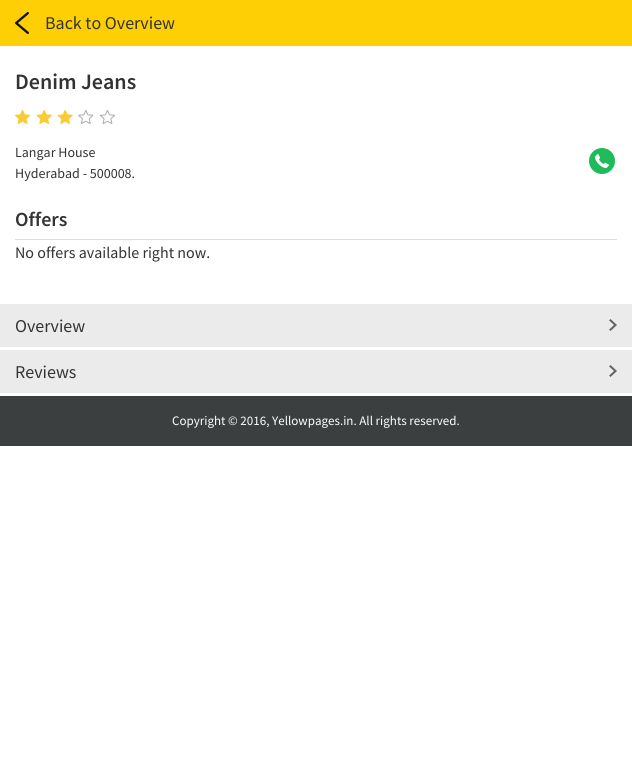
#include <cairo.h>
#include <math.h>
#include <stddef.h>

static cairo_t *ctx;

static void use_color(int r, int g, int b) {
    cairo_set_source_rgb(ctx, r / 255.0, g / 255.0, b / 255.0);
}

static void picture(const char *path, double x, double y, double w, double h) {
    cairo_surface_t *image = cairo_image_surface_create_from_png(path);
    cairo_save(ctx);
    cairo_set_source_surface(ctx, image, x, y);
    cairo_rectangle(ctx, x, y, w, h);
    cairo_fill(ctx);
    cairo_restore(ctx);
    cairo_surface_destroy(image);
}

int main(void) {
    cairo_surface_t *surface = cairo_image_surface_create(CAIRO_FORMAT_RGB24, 632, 776);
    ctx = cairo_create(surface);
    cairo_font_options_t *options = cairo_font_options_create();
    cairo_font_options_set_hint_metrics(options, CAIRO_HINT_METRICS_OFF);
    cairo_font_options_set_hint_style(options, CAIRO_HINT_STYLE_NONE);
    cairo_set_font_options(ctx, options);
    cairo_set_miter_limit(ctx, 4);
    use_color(255, 255, 255);
    cairo_paint(ctx);
    use_color(255, 207, 5);
    cairo_rectangle(ctx, 0, 0, 632, 46);
    cairo_fill(ctx);
    picture("img1.png", 15, 12, 14, 22);
    cairo_select_font_face(ctx, "Source Sans Pro", CAIRO_FONT_SLANT_NORMAL, CAIRO_FONT_WEIGHT_NORMAL);
    cairo_set_font_size(ctx, 18);
    use_color(51, 51, 51);
    cairo_move_to(ctx, 45, 29);
    cairo_show_text(ctx, "Back to Overview");
    cairo_select_font_face(ctx, "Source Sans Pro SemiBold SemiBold", CAIRO_FONT_SLANT_NORMAL, CAIRO_FONT_WEIGHT_NORMAL);
    cairo_set_font_size(ctx, 22);
    cairo_move_to(ctx, 15, 89);
    cairo_show_text(ctx, "Denim Jeans");
    picture("img2.png", 15, 110, 100, 14);
    cairo_select_font_face(ctx, "Source Sans Pro", CAIRO_FONT_SLANT_NORMAL, CAIRO_FONT_WEIGHT_NORMAL);
    cairo_set_font_size(ctx, 14);
    cairo_move_to(ctx, 15, 157);
    cairo_show_text(ctx, "Langar House");
    cairo_move_to(ctx, 15, 178);
    cairo_show_text(ctx, "Hyderabad - 500008.");
    picture("img3.png", 589, 148, 26, 26);
    use_color(221, 221, 221);
    cairo_rectangle(ctx, 15, 239, 602, 1);
    cairo_fill(ctx);
    cairo_select_font_face(ctx, "Source Sans Pro SemiBold SemiBold", CAIRO_FONT_SLANT_NORMAL, CAIRO_FONT_WEIGHT_NORMAL);
    cairo_set_font_size(ctx, 20);
    use_color(51, 51, 51);
    cairo_move_to(ctx, 15, 226);
    cairo_show_text(ctx, "Offers");
    cairo_select_font_face(ctx, "Source Sans Pro", CAIRO_FONT_SLANT_NORMAL, CAIRO_FONT_WEIGHT_NORMAL);
    cairo_set_font_size(ctx, 16);
    cairo_move_to(ctx, 15, 258);
    cairo_show_text(ctx, "No offers available right now.");
    use_color(235, 235, 235);
    cairo_rectangle(ctx, 0, 304, 632, 43);
    cairo_fill(ctx);
    cairo_set_font_size(ctx, 18);
    use_color(51, 51, 51);
    cairo_move_to(ctx, 15, 332);
    cairo_show_text(ctx, "Overview");
    picture("img4.png", 609, 319, 8, 12);
    use_color(235, 235, 235);
    cairo_rectangle(ctx, 0, 350, 632, 43);
    cairo_fill(ctx);
    use_color(51, 51, 51);
    cairo_move_to(ctx, 15, 378);
    cairo_show_text(ctx, "Reviews");
    picture("img4.png", 609, 365, 8, 12);
    use_color(59, 63, 64);
    cairo_rectangle(ctx, 0, 396, 632, 50);
    cairo_fill(ctx);
    cairo_set_font_size(ctx, 13);
    use_color(255, 255, 255);
    cairo_move_to(ctx, 172, 425);
    cairo_show_text(ctx, "Copyright © 2016, Yellowpages.in. All rights reserved.");
    cairo_surface_write_to_png(surface, "result.png");
    cairo_font_options_destroy(options);
    cairo_destroy(ctx);
    cairo_surface_destroy(surface);
    return 0;
}
